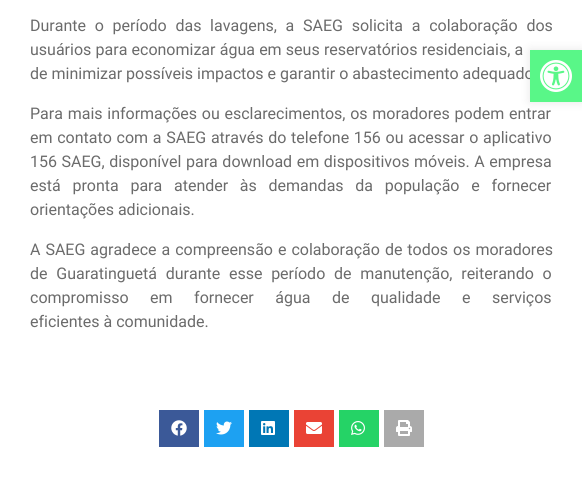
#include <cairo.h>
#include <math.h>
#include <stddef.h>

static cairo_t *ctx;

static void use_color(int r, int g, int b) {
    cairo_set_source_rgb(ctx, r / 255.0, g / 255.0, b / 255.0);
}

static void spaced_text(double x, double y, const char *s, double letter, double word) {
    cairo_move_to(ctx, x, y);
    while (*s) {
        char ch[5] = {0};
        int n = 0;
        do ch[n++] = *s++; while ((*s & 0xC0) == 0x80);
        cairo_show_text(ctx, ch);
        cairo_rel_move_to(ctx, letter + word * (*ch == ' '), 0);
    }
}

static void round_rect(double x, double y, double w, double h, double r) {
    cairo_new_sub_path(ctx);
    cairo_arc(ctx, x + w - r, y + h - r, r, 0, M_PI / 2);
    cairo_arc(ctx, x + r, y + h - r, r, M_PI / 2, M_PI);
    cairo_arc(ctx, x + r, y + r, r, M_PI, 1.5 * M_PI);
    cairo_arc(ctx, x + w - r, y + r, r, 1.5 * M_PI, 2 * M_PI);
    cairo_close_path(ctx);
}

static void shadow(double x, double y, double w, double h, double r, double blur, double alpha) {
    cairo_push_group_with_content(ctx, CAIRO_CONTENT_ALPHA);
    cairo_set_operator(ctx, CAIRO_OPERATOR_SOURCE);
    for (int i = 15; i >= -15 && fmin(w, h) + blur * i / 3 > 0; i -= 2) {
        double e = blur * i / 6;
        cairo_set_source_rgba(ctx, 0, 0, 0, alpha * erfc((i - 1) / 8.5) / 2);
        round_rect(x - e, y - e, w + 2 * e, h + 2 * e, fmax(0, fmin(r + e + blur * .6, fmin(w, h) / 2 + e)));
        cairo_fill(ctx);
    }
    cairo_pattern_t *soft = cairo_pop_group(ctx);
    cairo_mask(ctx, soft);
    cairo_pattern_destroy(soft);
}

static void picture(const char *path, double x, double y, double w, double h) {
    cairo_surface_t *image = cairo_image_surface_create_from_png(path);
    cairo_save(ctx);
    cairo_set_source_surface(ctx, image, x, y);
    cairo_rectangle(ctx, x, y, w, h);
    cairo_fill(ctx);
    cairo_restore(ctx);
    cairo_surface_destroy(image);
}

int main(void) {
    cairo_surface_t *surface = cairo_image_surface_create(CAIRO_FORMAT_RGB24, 582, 480);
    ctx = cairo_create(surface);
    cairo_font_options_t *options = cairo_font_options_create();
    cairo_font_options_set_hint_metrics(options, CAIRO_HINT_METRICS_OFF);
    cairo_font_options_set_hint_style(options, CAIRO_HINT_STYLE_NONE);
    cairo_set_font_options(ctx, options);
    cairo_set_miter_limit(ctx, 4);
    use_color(255, 255, 255);
    cairo_paint(ctx);
    cairo_select_font_face(ctx, "Roboto", CAIRO_FONT_SLANT_NORMAL, CAIRO_FONT_WEIGHT_NORMAL);
    cairo_set_font_size(ctx, 16);
    use_color(107, 107, 107);
    spaced_text(30, 31, "Durante o período das lavagens, a SAEG solicita a colaboração dos", 0, 4.75);
    spaced_text(30, 55, "usuários para economizar água em seus reservatórios residenciais, a", 0, 0.25);
    cairo_move_to(ctx, 30, 79);
    cairo_show_text(ctx, "de minimizar possíveis impactos e garantir o abastecimento adequado");
    spaced_text(30, 119, "Para mais informações ou esclarecimentos, os moradores podem entrar", 0, 0.75);
    spaced_text(30, 143, "em contato com a SAEG através do telefone 156 ou acessar o aplicativo", 0, 0.75);
    spaced_text(30, 167, "156 SAEG, disponível para download em dispositivos móveis. A empresa", 0, 0.6);
    spaced_text(30, 191, "está pronta para atender às demandas da população e fornecer", 0, 7.75);
    cairo_move_to(ctx, 30, 215);
    cairo_show_text(ctx, "orientações adicionais.");
    spaced_text(30, 255, "A SAEG agradece a compreensão e colaboração de todos os moradores", 0, 1);
    spaced_text(30, 279, "de Guaratinguetá durante esse período de manutenção, reiterando o", 0, 4.75);
    spaced_text(30, 303, "compromisso em fornecer água de qualidade e serviços", 0, 17.5);
    cairo_move_to(ctx, 30, 327);
    cairo_show_text(ctx, "eficientes à comunidade.");
    use_color(59, 89, 152);
    cairo_rectangle(ctx, 159, 410, 40, 37);
    cairo_fill(ctx);
    picture("img1.png", 171, 420, 16, 16);
    use_color(29, 161, 242);
    cairo_rectangle(ctx, 204, 410, 40, 37);
    cairo_fill(ctx);
    picture("img2.png", 216, 421, 16, 14);
    use_color(0, 119, 181);
    cairo_rectangle(ctx, 249, 410, 40, 37);
    cairo_fill(ctx);
    picture("img3.png", 261, 421, 14, 14);
    use_color(234, 67, 53);
    cairo_rectangle(ctx, 294, 410, 40, 37);
    cairo_fill(ctx);
    picture("img4.png", 306, 422, 16, 12);
    use_color(37, 211, 102);
    cairo_rectangle(ctx, 339, 410, 40, 37);
    cairo_fill(ctx);
    picture("img5.png", 351, 421, 14, 14);
    use_color(170, 170, 170);
    cairo_rectangle(ctx, 384, 410, 40, 37);
    cairo_fill(ctx);
    picture("img6.png", 396, 420, 16, 16);
    use_color(0, 0, 0);
    shadow(530, 50, 52, 52, 0, 5, 0.1);
    use_color(89, 247, 136);
    cairo_rectangle(ctx, 530, 50, 52, 52);
    cairo_fill(ctx);
    picture("img7.png", 540, 60, 32, 32);
    cairo_surface_write_to_png(surface, "result.png");
    cairo_font_options_destroy(options);
    cairo_destroy(ctx);
    cairo_surface_destroy(surface);
    return 0;
}
